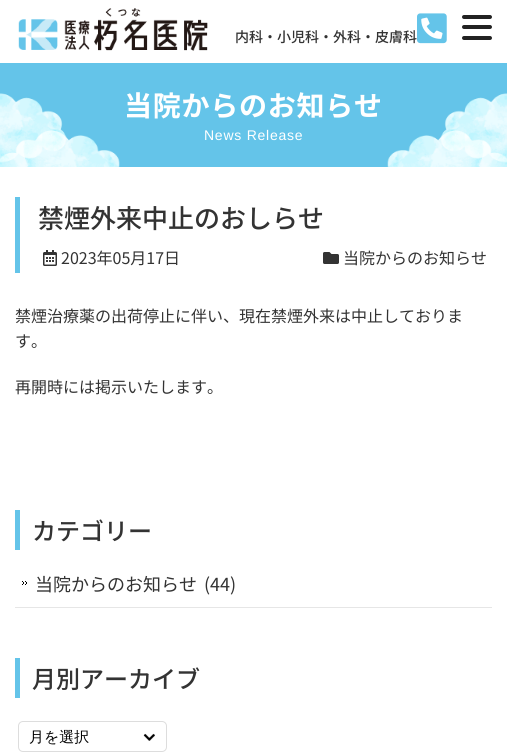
#include <cairo.h>
#include <math.h>
#include <stddef.h>

static cairo_t *ctx;

static void use_color(int r, int g, int b) {
    cairo_set_source_rgb(ctx, r / 255.0, g / 255.0, b / 255.0);
}

static void spaced_text(double x, double y, const char *s, double letter, double word) {
    cairo_move_to(ctx, x, y);
    while (*s) {
        char ch[5] = {0};
        int n = 0;
        do ch[n++] = *s++; while ((*s & 0xC0) == 0x80);
        cairo_show_text(ctx, ch);
        cairo_rel_move_to(ctx, letter + word * (*ch == ' '), 0);
    }
}

static void round_rect(double x, double y, double w, double h, double r) {
    cairo_new_sub_path(ctx);
    cairo_arc(ctx, x + w - r, y + h - r, r, 0, M_PI / 2);
    cairo_arc(ctx, x + r, y + h - r, r, M_PI / 2, M_PI);
    cairo_arc(ctx, x + r, y + r, r, M_PI, 1.5 * M_PI);
    cairo_arc(ctx, x + w - r, y + r, r, 1.5 * M_PI, 2 * M_PI);
    cairo_close_path(ctx);
}

static void picture(const char *path, double x, double y, double w, double h) {
    cairo_surface_t *image = cairo_image_surface_create_from_png(path);
    cairo_save(ctx);
    cairo_set_source_surface(ctx, image, x, y);
    cairo_rectangle(ctx, x, y, w, h);
    cairo_fill(ctx);
    cairo_restore(ctx);
    cairo_surface_destroy(image);
}

int main(void) {
    cairo_surface_t *surface = cairo_image_surface_create(CAIRO_FORMAT_RGB24, 507, 753);
    ctx = cairo_create(surface);
    cairo_font_options_t *options = cairo_font_options_create();
    cairo_font_options_set_hint_metrics(options, CAIRO_HINT_METRICS_OFF);
    cairo_font_options_set_hint_style(options, CAIRO_HINT_STYLE_NONE);
    cairo_set_font_options(ctx, options);
    cairo_set_miter_limit(ctx, 4);
    use_color(255, 255, 255);
    cairo_paint(ctx);
    picture("img1.png", 18, 8, 190, 43);
    cairo_select_font_face(ctx, "Noto Sans JP Medium", CAIRO_FONT_SLANT_NORMAL, CAIRO_FONT_WEIGHT_NORMAL);
    cairo_set_font_size(ctx, 14);
    use_color(51, 51, 51);
    cairo_move_to(ctx, 235, 42);
    cairo_show_text(ctx, "内科・小児科・外科・皮膚科");
    picture("img2.png", 417, 13, 30, 31);
    use_color(34, 34, 34);
    round_rect(462, 25, 30, 4, 2);
    cairo_fill(ctx);
    round_rect(462, 15, 30, 4, 2);
    cairo_fill(ctx);
    round_rect(462, 36, 30, 4, 2);
    cairo_fill(ctx);
    use_color(100, 196, 233);
    cairo_rectangle(ctx, 0, 63, 507, 30);
    cairo_fill(ctx);
    picture("img3.png", 0, 93, 507, 74);
    cairo_select_font_face(ctx, "Noto Sans JP", CAIRO_FONT_SLANT_NORMAL, CAIRO_FONT_WEIGHT_BOLD);
    cairo_set_font_size(ctx, 28);
    use_color(255, 255, 255);
    spaced_text(124, 116, "当院からのお知らせ", 0.75, 0);
    cairo_select_font_face(ctx, "Liberation Sans", CAIRO_FONT_SLANT_NORMAL, CAIRO_FONT_WEIGHT_NORMAL);
    cairo_set_font_size(ctx, 14);
    spaced_text(204, 140, "News Release", 0.75, 0);
    use_color(100, 196, 233);
    cairo_rectangle(ctx, 15, 197, 5, 76);
    cairo_fill(ctx);
    cairo_select_font_face(ctx, "Noto Sans JP Medium", CAIRO_FONT_SLANT_NORMAL, CAIRO_FONT_WEIGHT_NORMAL);
    cairo_set_font_size(ctx, 26);
    use_color(51, 51, 51);
    cairo_move_to(ctx, 38, 228);
    cairo_show_text(ctx, "禁煙外来中止のおしらせ");
    picture("img4.png", 43, 250, 14, 16);
    cairo_select_font_face(ctx, "Noto Sans JP", CAIRO_FONT_SLANT_NORMAL, CAIRO_FONT_WEIGHT_NORMAL);
    cairo_set_font_size(ctx, 16);
    cairo_move_to(ctx, 61, 264);
    cairo_show_text(ctx, "2023年05月17日");
    picture("img5.png", 323, 252, 16, 12);
    cairo_move_to(ctx, 343, 264);
    cairo_show_text(ctx, "当院からのお知らせ");
    cairo_move_to(ctx, 15, 322);
    cairo_show_text(ctx, "禁煙治療薬の出荷停止に伴い、現在禁煙外来は中止しておりま");
    cairo_move_to(ctx, 15, 347);
    cairo_show_text(ctx, "す。");
    cairo_move_to(ctx, 15, 393);
    cairo_show_text(ctx, "再開時には掲示いたします。");
    use_color(100, 196, 233);
    cairo_rectangle(ctx, 15, 510, 5, 40);
    cairo_fill(ctx);
    cairo_select_font_face(ctx, "Noto Sans JP Medium", CAIRO_FONT_SLANT_NORMAL, CAIRO_FONT_WEIGHT_NORMAL);
    cairo_set_font_size(ctx, 24);
    use_color(51, 51, 51);
    cairo_move_to(ctx, 32, 540);
    cairo_show_text(ctx, "カテゴリー");
    use_color(230, 230, 230);
    cairo_rectangle(ctx, 15, 607, 477, 1);
    cairo_fill(ctx);
    picture("img6.png", 22, 581, 5, 4);
    cairo_select_font_face(ctx, "Noto Sans JP", CAIRO_FONT_SLANT_NORMAL, CAIRO_FONT_WEIGHT_NORMAL);
    cairo_set_font_size(ctx, 18);
    use_color(51, 51, 51);
    cairo_move_to(ctx, 35, 591);
    cairo_show_text(ctx, "当院からのお知らせ");
    cairo_move_to(ctx, 204, 591);
    cairo_show_text(ctx, "(44)");
    use_color(100, 196, 233);
    cairo_rectangle(ctx, 15, 658, 5, 40);
    cairo_fill(ctx);
    cairo_select_font_face(ctx, "Noto Sans JP Medium", CAIRO_FONT_SLANT_NORMAL, CAIRO_FONT_WEIGHT_NORMAL);
    cairo_set_font_size(ctx, 24);
    use_color(51, 51, 51);
    cairo_move_to(ctx, 32, 688);
    cairo_show_text(ctx, "月別アーカイブ");
    picture("img7.png", 143, 733, 12, 8);
    round_rect(18.5, 721.5, 148, 30, 4.5);
    use_color(221, 221, 221);
    cairo_set_line_width(ctx, 1);
    cairo_stroke(ctx);
    cairo_select_font_face(ctx, "WenQuanYi Zen Hei Medium", CAIRO_FONT_SLANT_NORMAL, CAIRO_FONT_WEIGHT_NORMAL);
    cairo_set_font_size(ctx, 15);
    use_color(0, 0, 0);
    cairo_move_to(ctx, 29, 742);
    cairo_show_text(ctx, "月を選択");
    cairo_surface_write_to_png(surface, "result.png");
    cairo_font_options_destroy(options);
    cairo_destroy(ctx);
    cairo_surface_destroy(surface);
    return 0;
}
